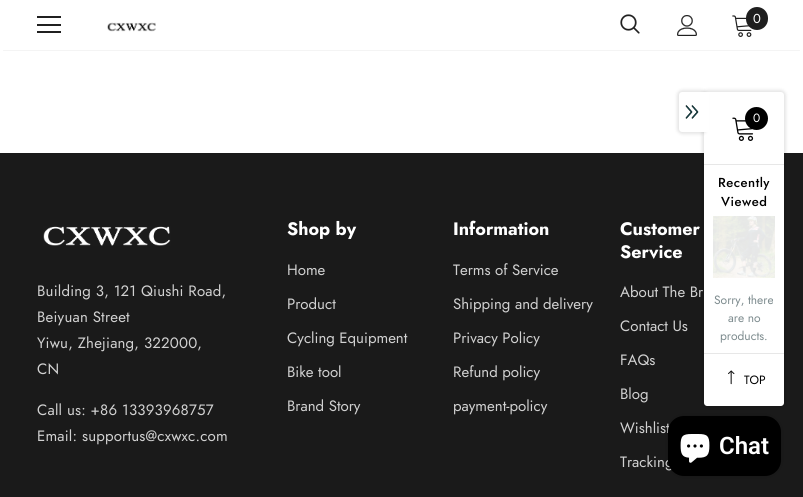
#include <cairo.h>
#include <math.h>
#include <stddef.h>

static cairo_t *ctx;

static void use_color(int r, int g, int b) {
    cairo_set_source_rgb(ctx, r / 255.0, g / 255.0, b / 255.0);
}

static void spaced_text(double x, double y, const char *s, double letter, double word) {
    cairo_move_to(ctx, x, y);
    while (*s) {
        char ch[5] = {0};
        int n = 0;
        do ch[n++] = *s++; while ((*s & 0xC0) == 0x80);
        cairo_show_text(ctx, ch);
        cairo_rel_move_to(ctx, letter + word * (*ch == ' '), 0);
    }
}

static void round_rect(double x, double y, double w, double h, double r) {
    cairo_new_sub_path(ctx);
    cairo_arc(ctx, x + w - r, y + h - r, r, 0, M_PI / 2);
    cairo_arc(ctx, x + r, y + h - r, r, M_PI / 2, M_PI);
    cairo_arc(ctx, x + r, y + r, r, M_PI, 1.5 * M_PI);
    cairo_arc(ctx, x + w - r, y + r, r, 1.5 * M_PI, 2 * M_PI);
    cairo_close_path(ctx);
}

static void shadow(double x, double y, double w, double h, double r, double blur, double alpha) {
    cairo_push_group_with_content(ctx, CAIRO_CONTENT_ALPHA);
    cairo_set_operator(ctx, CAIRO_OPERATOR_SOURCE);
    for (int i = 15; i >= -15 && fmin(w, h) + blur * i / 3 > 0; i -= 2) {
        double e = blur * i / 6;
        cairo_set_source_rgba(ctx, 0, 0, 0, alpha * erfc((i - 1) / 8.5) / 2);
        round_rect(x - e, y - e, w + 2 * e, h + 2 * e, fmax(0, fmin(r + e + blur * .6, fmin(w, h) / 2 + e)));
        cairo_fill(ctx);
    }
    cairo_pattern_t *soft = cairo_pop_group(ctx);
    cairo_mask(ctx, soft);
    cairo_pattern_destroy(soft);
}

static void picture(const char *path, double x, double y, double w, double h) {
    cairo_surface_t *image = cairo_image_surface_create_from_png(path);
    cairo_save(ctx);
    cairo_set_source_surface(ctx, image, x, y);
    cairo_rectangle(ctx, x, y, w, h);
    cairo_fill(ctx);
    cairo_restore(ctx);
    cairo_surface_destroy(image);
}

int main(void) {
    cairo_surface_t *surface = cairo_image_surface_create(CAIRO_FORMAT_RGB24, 803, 497);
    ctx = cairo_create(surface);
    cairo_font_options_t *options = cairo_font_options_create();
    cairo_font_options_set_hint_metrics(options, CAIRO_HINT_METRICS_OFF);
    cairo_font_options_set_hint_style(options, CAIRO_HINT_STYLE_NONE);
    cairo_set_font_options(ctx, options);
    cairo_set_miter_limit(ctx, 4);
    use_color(255, 255, 255);
    cairo_paint(ctx);
    cairo_save(ctx);
    cairo_rectangle(ctx, 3, 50, 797, 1);
    cairo_clip(ctx);
    use_color(0, 0, 0);
    shadow(3, 6, 797, 44, 0, 1.5, 0.12);
    cairo_restore(ctx);
    use_color(32, 32, 32);
    cairo_rectangle(ctx, 37, 16, 24, 2);
    cairo_fill(ctx);
    cairo_rectangle(ctx, 37, 24, 24, 2);
    cairo_fill(ctx);
    cairo_rectangle(ctx, 37, 31, 24, 2);
    cairo_fill(ctx);
    picture("img1.png", 107, 22, 49, 10);
    picture("img2.png", 620, 14, 20, 20);
    picture("img3.png", 677, 15, 20, 21);
    picture("img4.png", 732, 15, 20, 22);
    use_color(30, 30, 30);
    round_rect(746, 7, 22, 23, 11);
    cairo_fill(ctx);
    cairo_select_font_face(ctx, "Jost", CAIRO_FONT_SLANT_NORMAL, CAIRO_FONT_WEIGHT_NORMAL);
    cairo_set_font_size(ctx, 13);
    use_color(255, 255, 255);
    cairo_move_to(ctx, 753, 23);
    cairo_show_text(ctx, "0");
    use_color(26, 26, 26);
    cairo_rectangle(ctx, 0, 153, 803, 344);
    cairo_fill(ctx);
    picture("img5.png", 43, 226, 128, 20);
    cairo_set_font_size(ctx, 15);
    use_color(209, 209, 209);
    spaced_text(37, 296, "Building 3, 121 Qiushi Road,", 0.2, 0);
    spaced_text(37, 322, "Beiyuan Street", 0.2, 0);
    spaced_text(37, 348, "Yiwu, Zhejiang, 322000,", 0.2, 0);
    spaced_text(37, 374, "CN", 0.2, 0);
    spaced_text(37, 415, "Call us: +86 13393968757", 0.2, 0);
    spaced_text(37, 441, "Email: supportus@cxwxc.com", 0.2, 0);
    cairo_select_font_face(ctx, "Jost", CAIRO_FONT_SLANT_NORMAL, CAIRO_FONT_WEIGHT_BOLD);
    cairo_set_font_size(ctx, 18);
    use_color(255, 255, 255);
    cairo_move_to(ctx, 287, 235);
    cairo_show_text(ctx, "Shop by");
    cairo_select_font_face(ctx, "Jost", CAIRO_FONT_SLANT_NORMAL, CAIRO_FONT_WEIGHT_NORMAL);
    cairo_set_font_size(ctx, 15);
    use_color(209, 209, 209);
    cairo_move_to(ctx, 287, 275);
    cairo_show_text(ctx, "Home");
    cairo_move_to(ctx, 287, 309);
    cairo_show_text(ctx, "Product");
    cairo_move_to(ctx, 287, 343);
    cairo_show_text(ctx, "Cycling Equipment");
    cairo_move_to(ctx, 287, 377);
    cairo_show_text(ctx, "Bike tool");
    cairo_move_to(ctx, 287, 411);
    cairo_show_text(ctx, "Brand Story");
    cairo_select_font_face(ctx, "Jost", CAIRO_FONT_SLANT_NORMAL, CAIRO_FONT_WEIGHT_BOLD);
    cairo_set_font_size(ctx, 18);
    use_color(255, 255, 255);
    cairo_move_to(ctx, 453, 235);
    cairo_show_text(ctx, "Information");
    cairo_select_font_face(ctx, "Jost", CAIRO_FONT_SLANT_NORMAL, CAIRO_FONT_WEIGHT_NORMAL);
    cairo_set_font_size(ctx, 15);
    use_color(209, 209, 209);
    cairo_move_to(ctx, 453, 275);
    cairo_show_text(ctx, "Terms of Service");
    cairo_move_to(ctx, 453, 309);
    cairo_show_text(ctx, "Shipping and delivery");
    cairo_move_to(ctx, 453, 343);
    cairo_show_text(ctx, "Privacy Policy");
    cairo_move_to(ctx, 453, 377);
    cairo_show_text(ctx, "Refund policy");
    cairo_move_to(ctx, 453, 411);
    cairo_show_text(ctx, "payment-policy");
    cairo_select_font_face(ctx, "Jost", CAIRO_FONT_SLANT_NORMAL, CAIRO_FONT_WEIGHT_BOLD);
    cairo_set_font_size(ctx, 18);
    use_color(255, 255, 255);
    cairo_move_to(ctx, 620, 235);
    cairo_show_text(ctx, "Customer");
    cairo_move_to(ctx, 620, 258);
    cairo_show_text(ctx, "Service");
    cairo_select_font_face(ctx, "Jost", CAIRO_FONT_SLANT_NORMAL, CAIRO_FONT_WEIGHT_NORMAL);
    cairo_set_font_size(ctx, 15);
    use_color(209, 209, 209);
    cairo_move_to(ctx, 620, 297);
    cairo_show_text(ctx, "About The Br");
    cairo_move_to(ctx, 620, 331);
    cairo_show_text(ctx, "Contact Us");
    cairo_move_to(ctx, 620, 365);
    cairo_show_text(ctx, "FAQs");
    cairo_move_to(ctx, 620, 399);
    cairo_show_text(ctx, "Blog");
    cairo_move_to(ctx, 620, 433);
    cairo_show_text(ctx, "Wishlist");
    cairo_move_to(ctx, 620, 467);
    cairo_show_text(ctx, "Tracking");
    use_color(0, 0, 0);
    shadow(702, 90, 84, 318, 5, 1.5, 0.1);
    use_color(255, 255, 255);
    cairo_new_path(ctx);
    cairo_move_to(ctx, 704, 92);
    cairo_line_to(ctx, 781, 92);
    cairo_curve_to(ctx, 782.5, 92, 784, 93.5, 784, 95);
    cairo_line_to(ctx, 784, 403);
    cairo_curve_to(ctx, 784, 404.5, 782.5, 406, 781, 406);
    cairo_line_to(ctx, 707, 406);
    cairo_curve_to(ctx, 705.5, 406, 704, 404.5, 704, 403);
    cairo_close_path(ctx);
    cairo_fill(ctx);
    use_color(0, 0, 0);
    shadow(677, 90, 30, 44, 5, 1.5, 0.1);
    use_color(255, 255, 255);
    cairo_new_path(ctx);
    cairo_move_to(ctx, 682, 92);
    cairo_line_to(ctx, 705, 92);
    cairo_line_to(ctx, 705, 132);
    cairo_line_to(ctx, 682, 132);
    cairo_curve_to(ctx, 680.5, 132, 679, 130.5, 679, 129);
    cairo_line_to(ctx, 679, 95);
    cairo_curve_to(ctx, 679, 93.5, 680.5, 92, 682, 92);
    cairo_close_path(ctx);
    cairo_fill(ctx);
    picture("img6.png", 685, 105, 14, 14);
    cairo_rectangle(ctx, 705, 92, 4, 40);
    cairo_fill(ctx);
    use_color(231, 231, 231);
    cairo_rectangle(ctx, 704, 164, 80, 1);
    cairo_fill(ctx);
    picture("img7.png", 732, 117, 22, 24);
    use_color(0, 0, 0);
    cairo_arc(ctx, 756.5, 118.5, 11.5, 0, 2 * M_PI);
    cairo_fill(ctx);
    cairo_set_font_size(ctx, 12);
    use_color(255, 255, 255);
    cairo_move_to(ctx, 753, 122);
    cairo_show_text(ctx, "0");
    cairo_select_font_face(ctx, "Jost Medium", CAIRO_FONT_SLANT_NORMAL, CAIRO_FONT_WEIGHT_NORMAL);
    cairo_set_font_size(ctx, 13);
    use_color(0, 0, 0);
    spaced_text(718, 187, "Recently", 0.5, 0);
    spaced_text(721, 206, "Viewed", 0.5, 0);
    picture("img8.png", 713, 216, 62, 62);
    cairo_select_font_face(ctx, "Jost", CAIRO_FONT_SLANT_NORMAL, CAIRO_FONT_WEIGHT_NORMAL);
    cairo_set_font_size(ctx, 12);
    use_color(125, 139, 142);
    cairo_move_to(ctx, 714, 304);
    cairo_show_text(ctx, "Sorry, there");
    cairo_move_to(ctx, 728, 322);
    cairo_show_text(ctx, "are no");
    cairo_move_to(ctx, 720, 340);
    cairo_show_text(ctx, "products.");
    use_color(231, 231, 231);
    cairo_rectangle(ctx, 704, 353, 80, 1);
    cairo_fill(ctx);
    picture("img9.png", 728, 370, 7, 15);
    use_color(0, 0, 0);
    cairo_move_to(ctx, 744, 384);
    cairo_show_text(ctx, "TOP");
    use_color(0, 0, 0);
    shadow(668, 416, 113, 60, 16, 2.5, 0.15);
    use_color(0, 0, 0);
    round_rect(668, 416, 113, 60, 16);
    cairo_fill(ctx);
    picture("img10.png", 680, 434, 30, 29);
    cairo_select_font_face(ctx, "Roboto SemiBold", CAIRO_FONT_SLANT_NORMAL, CAIRO_FONT_WEIGHT_NORMAL);
    cairo_set_font_size(ctx, 24);
    use_color(255, 255, 255);
    cairo_move_to(ctx, 719, 454);
    cairo_show_text(ctx, "Chat");
    cairo_surface_write_to_png(surface, "result.png");
    cairo_font_options_destroy(options);
    cairo_destroy(ctx);
    cairo_surface_destroy(surface);
    return 0;
}
